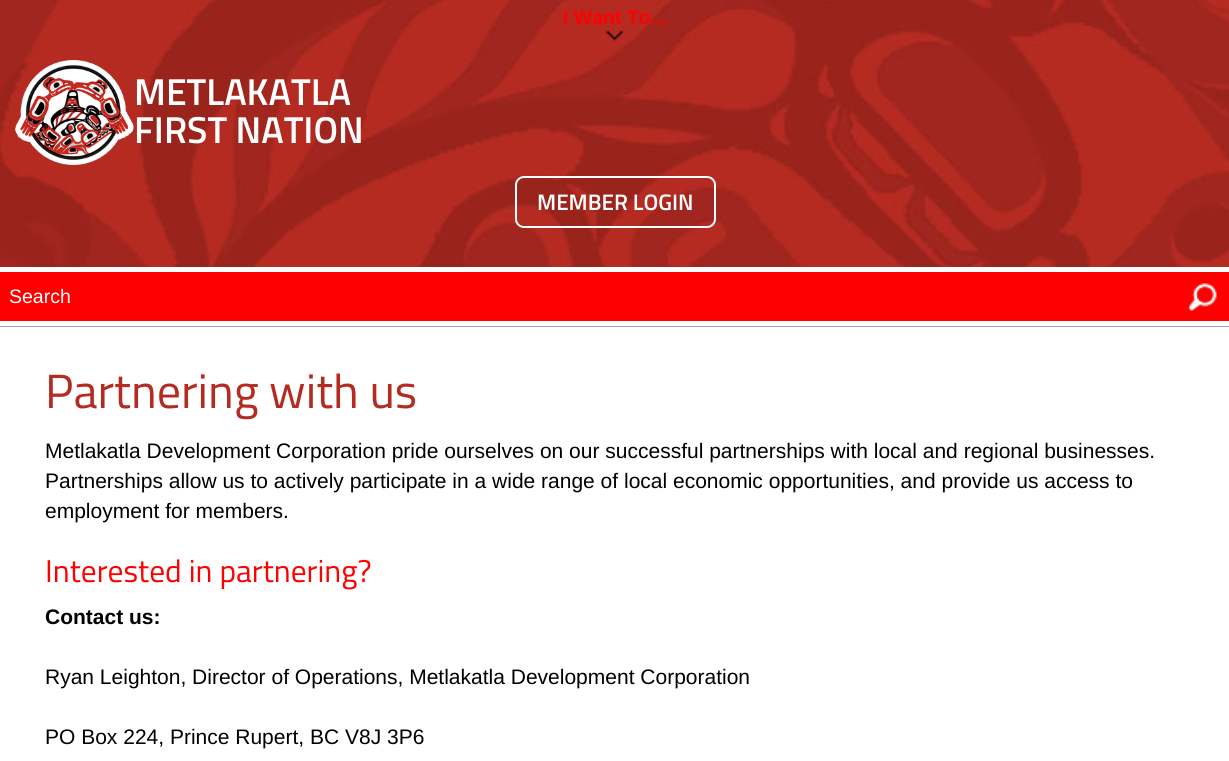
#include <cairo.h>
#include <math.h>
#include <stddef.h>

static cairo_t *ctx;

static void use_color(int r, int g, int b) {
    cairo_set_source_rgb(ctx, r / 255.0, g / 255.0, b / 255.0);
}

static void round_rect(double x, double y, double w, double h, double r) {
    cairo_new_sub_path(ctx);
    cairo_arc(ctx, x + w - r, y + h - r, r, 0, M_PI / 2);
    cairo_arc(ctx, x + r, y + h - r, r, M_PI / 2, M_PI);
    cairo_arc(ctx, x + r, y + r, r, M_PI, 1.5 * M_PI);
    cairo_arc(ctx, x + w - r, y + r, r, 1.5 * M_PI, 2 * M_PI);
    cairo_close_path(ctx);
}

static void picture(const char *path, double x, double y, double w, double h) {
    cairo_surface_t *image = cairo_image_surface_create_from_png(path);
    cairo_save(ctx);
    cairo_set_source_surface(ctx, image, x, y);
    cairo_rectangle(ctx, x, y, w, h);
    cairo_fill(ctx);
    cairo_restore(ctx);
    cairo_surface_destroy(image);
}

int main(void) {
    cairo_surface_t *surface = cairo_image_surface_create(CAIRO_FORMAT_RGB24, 1229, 761);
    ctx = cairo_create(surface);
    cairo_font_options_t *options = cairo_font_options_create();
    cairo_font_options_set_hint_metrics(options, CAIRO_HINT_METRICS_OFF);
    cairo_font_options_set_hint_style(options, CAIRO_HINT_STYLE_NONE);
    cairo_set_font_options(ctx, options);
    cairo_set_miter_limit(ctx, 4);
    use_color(162, 162, 162);
    cairo_paint(ctx);
    picture("img1.png", 0, 0, 1229, 267);
    cairo_select_font_face(ctx, "Liberation Sans", CAIRO_FONT_SLANT_NORMAL, CAIRO_FONT_WEIGHT_BOLD);
    cairo_set_font_size(ctx, 19.5);
    use_color(254, 0, 0);
    cairo_move_to(ctx, 563, 24);
    cairo_show_text(ctx, "I Want To...");
    picture("img2.png", 606, 30, 18, 11);
    picture("img3.png", 15, 60, 119, 105);
    cairo_select_font_face(ctx, "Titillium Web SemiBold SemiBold", CAIRO_FONT_SLANT_NORMAL, CAIRO_FONT_WEIGHT_NORMAL);
    cairo_set_font_size(ctx, 37.5);
    use_color(255, 255, 255);
    cairo_move_to(ctx, 134, 105);
    cairo_show_text(ctx, "METLAKATLA");
    cairo_move_to(ctx, 134, 143);
    cairo_show_text(ctx, "FIRST NATION");
    round_rect(516, 177, 199, 50, 8);
    cairo_stroke(ctx);
    cairo_set_font_size(ctx, 22.5);
    cairo_move_to(ctx, 537, 210);
    cairo_show_text(ctx, "MEMBER LOGIN");
    use_color(254, 0, 0);
    cairo_rectangle(ctx, 0, 272, 1229, 49);
    cairo_fill(ctx);
    use_color(255, 255, 255);
    cairo_rectangle(ctx, 0, 267, 1229, 5);
    cairo_fill(ctx);
    cairo_rectangle(ctx, 0, 321, 1229, 5);
    cairo_fill(ctx);
    cairo_select_font_face(ctx, "Liberation Sans", CAIRO_FONT_SLANT_NORMAL, CAIRO_FONT_WEIGHT_NORMAL);
    cairo_set_font_size(ctx, 19.5);
    cairo_move_to(ctx, 9, 303);
    cairo_show_text(ctx, "Search");
    picture("img4.png", 1188, 283, 29, 28);
    cairo_rectangle(ctx, 0, 327, 1229, 434);
    cairo_fill(ctx);
    cairo_select_font_face(ctx, "Titillium Web", CAIRO_FONT_SLANT_NORMAL, CAIRO_FONT_WEIGHT_NORMAL);
    cairo_set_font_size(ctx, 48);
    use_color(181, 43, 33);
    cairo_move_to(ctx, 45, 408);
    cairo_show_text(ctx, "Partnering with us");
    cairo_select_font_face(ctx, "Liberation Sans", CAIRO_FONT_SLANT_NORMAL, CAIRO_FONT_WEIGHT_NORMAL);
    cairo_set_font_size(ctx, 21);
    use_color(0, 0, 0);
    cairo_move_to(ctx, 45, 458);
    cairo_show_text(ctx, "Metlakatla Development Corporation pride ourselves on our successful partnerships with local and regional businesses.");
    cairo_move_to(ctx, 45, 488);
    cairo_show_text(ctx, "Partnerships allow us to actively participate in a wide range of local economic opportunities, and provide us access to");
    cairo_move_to(ctx, 45, 518);
    cairo_show_text(ctx, "employment for members.");
    cairo_select_font_face(ctx, "Titillium Web", CAIRO_FONT_SLANT_NORMAL, CAIRO_FONT_WEIGHT_NORMAL);
    cairo_set_font_size(ctx, 31.5);
    use_color(254, 0, 0);
    cairo_move_to(ctx, 45, 582);
    cairo_show_text(ctx, "Interested in partnering?");
    cairo_select_font_face(ctx, "Liberation Sans", CAIRO_FONT_SLANT_NORMAL, CAIRO_FONT_WEIGHT_BOLD);
    cairo_set_font_size(ctx, 21);
    use_color(0, 0, 0);
    cairo_move_to(ctx, 45, 624);
    cairo_show_text(ctx, "Contact us:");
    cairo_select_font_face(ctx, "Liberation Sans", CAIRO_FONT_SLANT_NORMAL, CAIRO_FONT_WEIGHT_NORMAL);
    cairo_move_to(ctx, 45, 684);
    cairo_show_text(ctx, "Ryan Leighton, Director of Operations, Metlakatla Development Corporation");
    cairo_move_to(ctx, 45, 744);
    cairo_show_text(ctx, "PO Box 224, Prince Rupert, BC V8J 3P6");
    cairo_surface_write_to_png(surface, "result.png");
    cairo_font_options_destroy(options);
    cairo_destroy(ctx);
    cairo_surface_destroy(surface);
    return 0;
}
